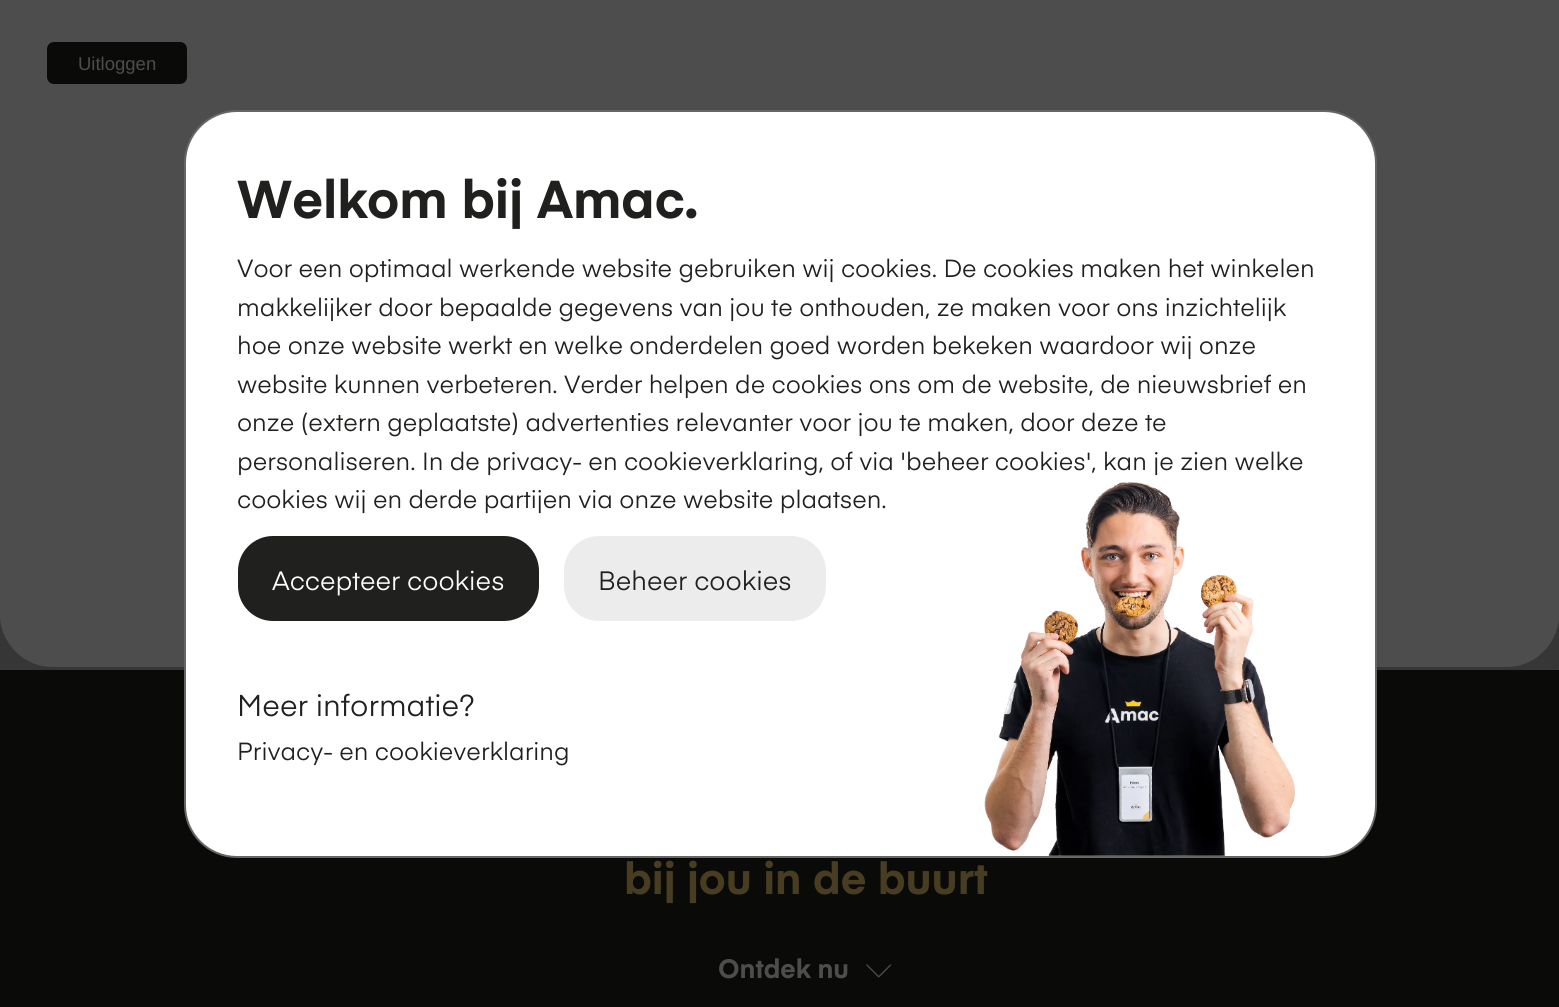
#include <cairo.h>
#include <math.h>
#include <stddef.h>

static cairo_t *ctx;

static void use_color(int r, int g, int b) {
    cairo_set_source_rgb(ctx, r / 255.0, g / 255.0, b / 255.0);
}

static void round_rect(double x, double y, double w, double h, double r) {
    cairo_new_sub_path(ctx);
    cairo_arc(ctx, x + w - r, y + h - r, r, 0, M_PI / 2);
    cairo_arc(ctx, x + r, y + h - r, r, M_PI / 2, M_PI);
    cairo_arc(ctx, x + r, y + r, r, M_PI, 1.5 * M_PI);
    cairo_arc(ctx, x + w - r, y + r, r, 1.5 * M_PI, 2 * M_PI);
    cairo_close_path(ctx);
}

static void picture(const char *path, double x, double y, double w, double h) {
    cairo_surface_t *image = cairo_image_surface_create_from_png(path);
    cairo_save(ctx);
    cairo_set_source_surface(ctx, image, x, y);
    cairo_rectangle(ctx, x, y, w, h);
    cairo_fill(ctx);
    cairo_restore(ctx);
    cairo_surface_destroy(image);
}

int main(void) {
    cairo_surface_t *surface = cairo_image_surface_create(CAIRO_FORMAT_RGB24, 1559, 1007);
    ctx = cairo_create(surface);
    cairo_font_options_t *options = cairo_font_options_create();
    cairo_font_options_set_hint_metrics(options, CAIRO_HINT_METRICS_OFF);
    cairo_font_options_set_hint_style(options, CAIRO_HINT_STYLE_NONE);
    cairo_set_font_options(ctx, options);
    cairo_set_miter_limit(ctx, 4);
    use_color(77, 77, 77);
    cairo_paint(ctx);
    use_color(10, 10, 9);
    round_rect(47, 42, 140, 42, 7);
    cairo_fill(ctx);
    cairo_select_font_face(ctx, "Liberation Sans", CAIRO_FONT_SLANT_NORMAL, CAIRO_FONT_WEIGHT_NORMAL);
    cairo_set_font_size(ctx, 18.5);
    use_color(77, 77, 77);
    cairo_move_to(ctx, 78, 70);
    cairo_show_text(ctx, "Uitloggen");
    use_color(53, 54, 53);
    cairo_new_path(ctx);
    cairo_move_to(ctx, 0, 618);
    cairo_line_to(ctx, 0, 666);
    cairo_curve_to(ctx, 0, 695, 24, 719, 53, 719);
    cairo_line_to(ctx, 1506, 719);
    cairo_curve_to(ctx, 1535, 719, 1559, 695, 1559, 666);
    cairo_line_to(ctx, 1559, 619);
    cairo_curve_to(ctx, 1556, 646, 1534, 667, 1507, 667);
    cairo_line_to(ctx, 52, 667);
    cairo_curve_to(ctx, 25, 667, 2, 645, 0, 618);
    cairo_close_path(ctx);
    cairo_fill(ctx);
    use_color(10, 10, 9);
    cairo_rectangle(ctx, 0, 670, 1559, 337);
    cairo_fill(ctx);
    cairo_select_font_face(ctx, "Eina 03", CAIRO_FONT_SLANT_NORMAL, CAIRO_FONT_WEIGHT_BOLD);
    cairo_set_font_size(ctx, 43.75);
    use_color(72, 61, 32);
    cairo_move_to(ctx, 624, 894);
    cairo_show_text(ctx, "bij jou in de buurt");
    cairo_set_font_size(ctx, 26.25);
    use_color(77, 77, 77);
    cairo_move_to(ctx, 718, 978);
    cairo_show_text(ctx, "Ontdek nu");
    picture("img1.png", 866, 964, 26, 14);
    use_color(255, 255, 255);
    round_rect(185, 111, 1191, 746, 52);
    cairo_fill_preserve(ctx);
    use_color(102, 102, 102);
    cairo_stroke(ctx);
    picture("img2.png", 984, 482, 311, 374);
    cairo_set_font_size(ctx, 52.5);
    use_color(32, 32, 31);
    cairo_move_to(ctx, 237, 218);
    cairo_show_text(ctx, "Welkom bij Amac.");
    cairo_select_font_face(ctx, "Eina 03", CAIRO_FONT_SLANT_NORMAL, CAIRO_FONT_WEIGHT_NORMAL);
    cairo_set_font_size(ctx, 24.5);
    cairo_move_to(ctx, 237, 277);
    cairo_show_text(ctx, "Voor een optimaal werkende website gebruiken wij cookies. De cookies maken het winkelen");
    cairo_move_to(ctx, 237, 316);
    cairo_show_text(ctx, "makkelijker door bepaalde gegevens van jou te onthouden, ze maken voor ons inzichtelijk");
    cairo_move_to(ctx, 237, 354);
    cairo_show_text(ctx, "hoe onze website werkt en welke onderdelen goed worden bekeken waardoor wij onze");
    cairo_move_to(ctx, 237, 393);
    cairo_show_text(ctx, "website kunnen verbeteren. Verder helpen de cookies ons om de website, de nieuwsbrief en");
    cairo_move_to(ctx, 237, 431);
    cairo_show_text(ctx, "onze (extern geplaatste) advertenties relevanter voor jou te maken, door deze te");
    cairo_move_to(ctx, 237, 470);
    cairo_show_text(ctx, "personaliseren. In de privacy- en cookieverklaring, of via 'beheer cookies', kan je zien welke");
    cairo_move_to(ctx, 237, 508);
    cairo_show_text(ctx, "cookies wij en derde partijen via onze website plaatsen.");
    round_rect(238, 536, 301, 85, 35);
    cairo_fill(ctx);
    cairo_set_font_size(ctx, 26.25);
    use_color(255, 255, 255);
    cairo_move_to(ctx, 272, 590);
    cairo_show_text(ctx, "Accepteer cookies");
    use_color(236, 236, 236);
    round_rect(564, 536, 262, 85, 35);
    cairo_fill(ctx);
    use_color(32, 32, 31);
    cairo_move_to(ctx, 598, 590);
    cairo_show_text(ctx, "Beheer cookies");
    cairo_set_font_size(ctx, 29.75);
    cairo_move_to(ctx, 237, 716);
    cairo_show_text(ctx, "Meer informatie?");
    cairo_set_font_size(ctx, 24.5);
    cairo_move_to(ctx, 237, 760);
    cairo_show_text(ctx, "Privacy- en cookieverklaring");
    cairo_surface_write_to_png(surface, "result.png");
    cairo_font_options_destroy(options);
    cairo_destroy(ctx);
    cairo_surface_destroy(surface);
    return 0;
}
